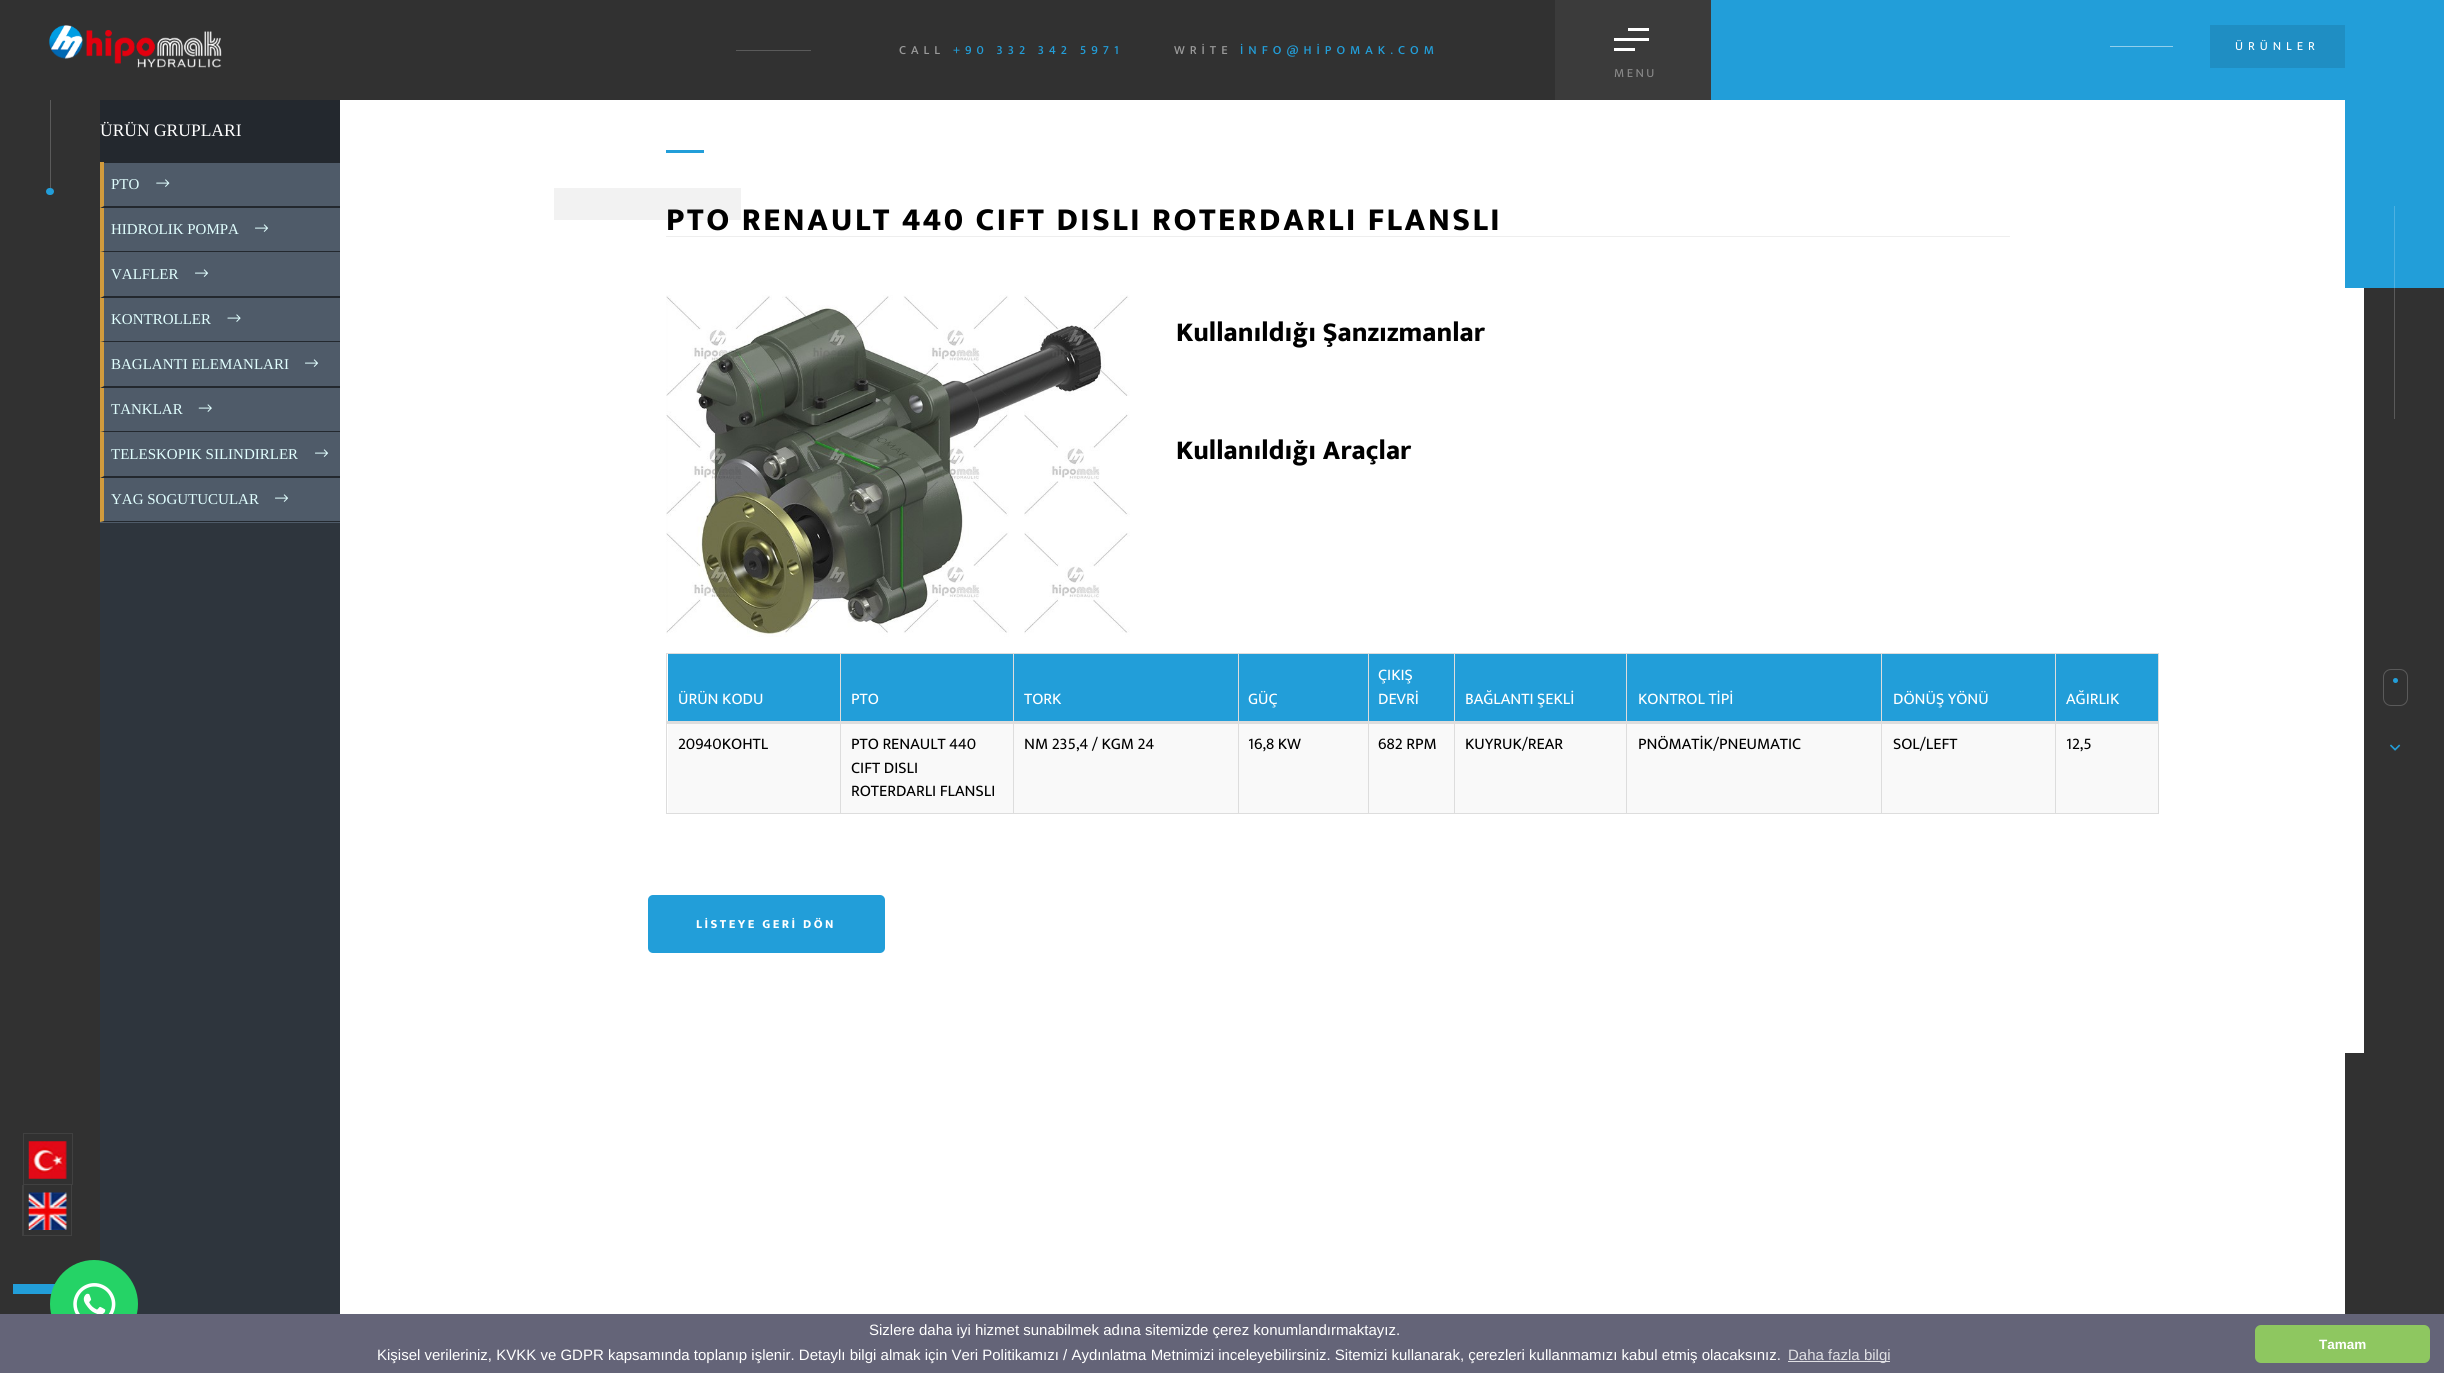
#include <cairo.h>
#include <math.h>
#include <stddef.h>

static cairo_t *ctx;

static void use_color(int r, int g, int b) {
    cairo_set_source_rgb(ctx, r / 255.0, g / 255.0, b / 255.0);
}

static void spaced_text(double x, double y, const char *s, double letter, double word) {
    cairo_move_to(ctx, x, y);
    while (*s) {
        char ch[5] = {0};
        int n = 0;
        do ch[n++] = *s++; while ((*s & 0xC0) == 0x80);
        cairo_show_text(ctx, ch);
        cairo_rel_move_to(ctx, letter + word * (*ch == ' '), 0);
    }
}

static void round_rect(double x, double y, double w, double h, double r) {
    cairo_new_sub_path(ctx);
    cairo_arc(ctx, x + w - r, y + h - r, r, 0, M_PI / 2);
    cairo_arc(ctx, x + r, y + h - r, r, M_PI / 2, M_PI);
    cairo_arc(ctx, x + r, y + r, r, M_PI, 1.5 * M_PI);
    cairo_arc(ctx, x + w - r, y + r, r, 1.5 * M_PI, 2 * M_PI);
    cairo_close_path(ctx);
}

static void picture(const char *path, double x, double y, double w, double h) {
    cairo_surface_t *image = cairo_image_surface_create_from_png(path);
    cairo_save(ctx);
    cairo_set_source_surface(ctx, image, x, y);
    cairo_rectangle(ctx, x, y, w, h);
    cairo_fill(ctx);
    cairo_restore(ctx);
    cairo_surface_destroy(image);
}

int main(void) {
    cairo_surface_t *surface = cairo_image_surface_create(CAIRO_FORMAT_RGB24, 2444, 1373);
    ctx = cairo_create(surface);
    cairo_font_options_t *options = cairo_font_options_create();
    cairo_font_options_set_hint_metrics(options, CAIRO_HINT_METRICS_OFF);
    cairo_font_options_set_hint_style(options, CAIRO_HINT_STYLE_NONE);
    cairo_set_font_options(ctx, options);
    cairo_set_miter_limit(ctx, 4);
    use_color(49, 49, 49);
    cairo_paint(ctx);
    use_color(90, 90, 90);
    cairo_rectangle(ctx, 2394, 288, 1, 131);
    cairo_fill(ctx);
    picture("img1.png", 49, 25, 173, 43);
    cairo_rectangle(ctx, 736, 50, 75, 1);
    cairo_fill(ctx);
    cairo_select_font_face(ctx, "Mukta Vaani Medium", CAIRO_FONT_SLANT_NORMAL, CAIRO_FONT_WEIGHT_NORMAL);
    cairo_set_font_size(ctx, 12.5);
    use_color(154, 154, 154);
    spaced_text(899, 54, "CALL", 5, 0);
    use_color(34, 158, 217);
    spaced_text(953, 54, "+90 332 342 5971", 5, 0);
    use_color(154, 154, 154);
    spaced_text(1174, 54, "WRİTE", 5, 0);
    use_color(34, 158, 217);
    spaced_text(1240, 54, "İNFO@HİPOMAK.COM", 5, 0);
    use_color(59, 59, 59);
    cairo_rectangle(ctx, 1555, 0, 156, 100);
    cairo_fill(ctx);
    use_color(255, 255, 255);
    cairo_rectangle(ctx, 1628, 28, 21, 3);
    cairo_fill(ctx);
    cairo_rectangle(ctx, 1614, 38, 35, 3);
    cairo_fill(ctx);
    cairo_rectangle(ctx, 1614, 48, 21, 3);
    cairo_fill(ctx);
    cairo_select_font_face(ctx, "Mukta Vaani", CAIRO_FONT_SLANT_NORMAL, CAIRO_FONT_WEIGHT_NORMAL);
    use_color(139, 139, 139);
    spaced_text(1614, 77, "MENU", 2.5, 0);
    use_color(34, 158, 217);
    cairo_rectangle(ctx, 1711, 0, 733, 100);
    cairo_fill(ctx);
    use_color(145, 207, 236);
    cairo_rectangle(ctx, 2110, 46, 63, 1);
    cairo_fill(ctx);
    use_color(31, 142, 195);
    cairo_rectangle(ctx, 2210, 25, 135, 43);
    cairo_fill(ctx);
    use_color(255, 255, 255);
    spaced_text(2235, 50, "ÜRÜNLER", 5, 0);
    cairo_rectangle(ctx, 340, 100, 2024, 953);
    cairo_fill(ctx);
    use_color(34, 158, 217);
    cairo_rectangle(ctx, 2345, 100, 99, 188);
    cairo_fill(ctx);
    use_color(78, 177, 225);
    cairo_rectangle(ctx, 2394, 206, 1, 82);
    cairo_fill(ctx);
    use_color(90, 90, 90);
    cairo_rectangle(ctx, 50, 100, 1, 88);
    cairo_fill(ctx);
    use_color(34, 158, 217);
    round_rect(46, 188, 8, 7, 3.5);
    cairo_fill(ctx);
    cairo_rectangle(ctx, 23.5, 1133.5, 49, 51);
    use_color(65, 65, 65);
    cairo_set_line_width(ctx, 1);
    cairo_stroke(ctx);
    picture("img2.png", 28, 1141, 39, 38);
    cairo_new_path(ctx);
    cairo_move_to(ctx, 72, 1185);
    cairo_line_to(ctx, 72, 1236);
    cairo_line_to(ctx, 71, 1235);
    cairo_line_to(ctx, 71, 1185);
    cairo_close_path(ctx);
    cairo_fill(ctx);
    cairo_set_source_rgba(ctx, 1, 1, 1, 0.08);
    cairo_new_path(ctx);
    cairo_move_to(ctx, 72, 1236);
    cairo_line_to(ctx, 22, 1236);
    cairo_line_to(ctx, 24, 1235);
    cairo_line_to(ctx, 71, 1235);
    cairo_close_path(ctx);
    cairo_fill(ctx);
    cairo_new_path(ctx);
    cairo_move_to(ctx, 22, 1236);
    cairo_line_to(ctx, 22, 1185);
    cairo_line_to(ctx, 24, 1185);
    cairo_line_to(ctx, 24, 1235);
    cairo_close_path(ctx);
    cairo_fill(ctx);
    picture("img3.png", 28, 1192, 39, 38);
    use_color(34, 158, 217);
    cairo_rectangle(ctx, 13, 1284, 42, 10);
    cairo_fill(ctx);
    use_color(255, 255, 255);
    cairo_rectangle(ctx, 340, 1053, 2005, 261);
    cairo_fill(ctx);
    use_color(46, 53, 61);
    cairo_rectangle(ctx, 100, 523, 240, 791);
    cairo_fill(ctx);
    use_color(35, 40, 46);
    cairo_rectangle(ctx, 100, 100, 240, 63);
    cairo_fill(ctx);
    cairo_select_font_face(ctx, "Liberation Serif", CAIRO_FONT_SLANT_NORMAL, CAIRO_FONT_WEIGHT_NORMAL);
    cairo_set_font_size(ctx, 17.5);
    use_color(255, 255, 255);
    cairo_move_to(ctx, 100, 136);
    cairo_show_text(ctx, "ÜRÜN GRUPLARI");
    use_color(79, 91, 105);
    cairo_rectangle(ctx, 100, 163, 240, 360);
    cairo_fill(ctx);
    use_color(35, 40, 46);
    cairo_new_path(ctx);
    cairo_move_to(ctx, 340, 208);
    cairo_line_to(ctx, 100, 208);
    cairo_line_to(ctx, 104, 206);
    cairo_line_to(ctx, 340, 206);
    cairo_close_path(ctx);
    cairo_fill(ctx);
    use_color(209, 155, 61);
    cairo_new_path(ctx);
    cairo_move_to(ctx, 100, 208);
    cairo_line_to(ctx, 100, 162);
    cairo_line_to(ctx, 104, 162);
    cairo_line_to(ctx, 104, 206);
    cairo_close_path(ctx);
    cairo_fill(ctx);
    cairo_set_font_size(ctx, 15);
    use_color(225, 255, 255);
    cairo_move_to(ctx, 111, 189);
    cairo_show_text(ctx, "PTO");
    picture("img4.png", 156, 179, 14, 8);
    use_color(35, 40, 46);
    cairo_new_path(ctx);
    cairo_move_to(ctx, 340, 252);
    cairo_line_to(ctx, 100, 252);
    cairo_line_to(ctx, 104, 251);
    cairo_line_to(ctx, 340, 251);
    cairo_close_path(ctx);
    cairo_fill(ctx);
    use_color(209, 155, 61);
    cairo_new_path(ctx);
    cairo_move_to(ctx, 100, 252);
    cairo_line_to(ctx, 100, 208);
    cairo_line_to(ctx, 104, 208);
    cairo_line_to(ctx, 104, 251);
    cairo_close_path(ctx);
    cairo_fill(ctx);
    use_color(225, 255, 255);
    cairo_move_to(ctx, 111, 234);
    cairo_show_text(ctx, "HIDROLIK POMPA");
    picture("img5.png", 255, 224, 14, 8);
    use_color(35, 40, 46);
    cairo_new_path(ctx);
    cairo_move_to(ctx, 340, 298);
    cairo_line_to(ctx, 100, 298);
    cairo_line_to(ctx, 104, 296);
    cairo_line_to(ctx, 340, 296);
    cairo_close_path(ctx);
    cairo_fill(ctx);
    use_color(209, 155, 61);
    cairo_new_path(ctx);
    cairo_move_to(ctx, 100, 298);
    cairo_line_to(ctx, 100, 252);
    cairo_line_to(ctx, 104, 252);
    cairo_line_to(ctx, 104, 296);
    cairo_close_path(ctx);
    cairo_fill(ctx);
    use_color(225, 255, 255);
    cairo_move_to(ctx, 111, 279);
    cairo_show_text(ctx, "VALFLER");
    picture("img5.png", 195, 269, 14, 8);
    use_color(35, 40, 46);
    cairo_new_path(ctx);
    cairo_move_to(ctx, 340, 342);
    cairo_line_to(ctx, 100, 342);
    cairo_line_to(ctx, 104, 341);
    cairo_line_to(ctx, 340, 341);
    cairo_close_path(ctx);
    cairo_fill(ctx);
    use_color(209, 155, 61);
    cairo_new_path(ctx);
    cairo_move_to(ctx, 100, 342);
    cairo_line_to(ctx, 100, 298);
    cairo_line_to(ctx, 104, 298);
    cairo_line_to(ctx, 104, 341);
    cairo_close_path(ctx);
    cairo_fill(ctx);
    use_color(225, 255, 255);
    cairo_move_to(ctx, 111, 324);
    cairo_show_text(ctx, "KONTROLLER");
    picture("img6.png", 227, 314, 14, 8);
    use_color(35, 40, 46);
    cairo_new_path(ctx);
    cairo_move_to(ctx, 340, 388);
    cairo_line_to(ctx, 100, 388);
    cairo_line_to(ctx, 104, 386);
    cairo_line_to(ctx, 340, 386);
    cairo_close_path(ctx);
    cairo_fill(ctx);
    use_color(209, 155, 61);
    cairo_new_path(ctx);
    cairo_move_to(ctx, 100, 388);
    cairo_line_to(ctx, 100, 342);
    cairo_line_to(ctx, 104, 342);
    cairo_line_to(ctx, 104, 386);
    cairo_close_path(ctx);
    cairo_fill(ctx);
    use_color(225, 255, 255);
    cairo_move_to(ctx, 111, 369);
    cairo_show_text(ctx, "BAGLANTI ELEMANLARI");
    picture("img5.png", 305, 359, 14, 8);
    use_color(35, 40, 46);
    cairo_new_path(ctx);
    cairo_move_to(ctx, 340, 432);
    cairo_line_to(ctx, 100, 432);
    cairo_line_to(ctx, 104, 431);
    cairo_line_to(ctx, 340, 431);
    cairo_close_path(ctx);
    cairo_fill(ctx);
    use_color(209, 155, 61);
    cairo_new_path(ctx);
    cairo_move_to(ctx, 100, 432);
    cairo_line_to(ctx, 100, 388);
    cairo_line_to(ctx, 104, 388);
    cairo_line_to(ctx, 104, 431);
    cairo_close_path(ctx);
    cairo_fill(ctx);
    use_color(225, 255, 255);
    cairo_move_to(ctx, 111, 414);
    cairo_show_text(ctx, "TANKLAR");
    picture("img7.png", 198, 404, 14, 8);
    use_color(35, 40, 46);
    cairo_new_path(ctx);
    cairo_move_to(ctx, 340, 478);
    cairo_line_to(ctx, 100, 478);
    cairo_line_to(ctx, 104, 476);
    cairo_line_to(ctx, 340, 476);
    cairo_close_path(ctx);
    cairo_fill(ctx);
    use_color(209, 155, 61);
    cairo_new_path(ctx);
    cairo_move_to(ctx, 100, 478);
    cairo_line_to(ctx, 100, 432);
    cairo_line_to(ctx, 104, 432);
    cairo_line_to(ctx, 104, 476);
    cairo_close_path(ctx);
    cairo_fill(ctx);
    use_color(225, 255, 255);
    cairo_move_to(ctx, 111, 459);
    cairo_show_text(ctx, "TELESKOPIK SILINDIRLER");
    picture("img5.png", 315, 449, 14, 8);
    use_color(35, 40, 46);
    cairo_new_path(ctx);
    cairo_move_to(ctx, 340, 522);
    cairo_line_to(ctx, 100, 522);
    cairo_line_to(ctx, 104, 521);
    cairo_line_to(ctx, 340, 521);
    cairo_close_path(ctx);
    cairo_fill(ctx);
    use_color(209, 155, 61);
    cairo_new_path(ctx);
    cairo_move_to(ctx, 100, 522);
    cairo_line_to(ctx, 100, 478);
    cairo_line_to(ctx, 104, 478);
    cairo_line_to(ctx, 104, 521);
    cairo_close_path(ctx);
    cairo_fill(ctx);
    use_color(225, 255, 255);
    cairo_move_to(ctx, 111, 504);
    cairo_show_text(ctx, "YAG SOGUTUCULAR");
    picture("img5.png", 275, 494, 14, 8);
    use_color(34, 158, 217);
    cairo_rectangle(ctx, 666, 150, 38, 3);
    cairo_fill(ctx);
    use_color(242, 242, 242);
    cairo_rectangle(ctx, 554, 188, 187, 32);
    cairo_fill(ctx);
    cairo_select_font_face(ctx, "Mukta Vaani ExtraBold", CAIRO_FONT_SLANT_NORMAL, CAIRO_FONT_WEIGHT_NORMAL);
    cairo_set_font_size(ctx, 32.5);
    use_color(0, 0, 0);
    spaced_text(666, 230, "PTO RENAULT 440 CIFT DISLI ROTERDARLI FLANSLI", 2.5, 0);
    use_color(238, 238, 238);
    cairo_rectangle(ctx, 666, 236, 1344, 1);
    cairo_fill(ctx);
    picture("img8.png", 666, 295, 464, 342);
    cairo_set_font_size(ctx, 27.5);
    use_color(0, 0, 0);
    cairo_move_to(ctx, 1176, 341);
    cairo_show_text(ctx, "Kullanıldığı Şanzızmanlar");
    cairo_move_to(ctx, 1176, 459);
    cairo_show_text(ctx, "Kullanıldığı Araçlar");
    use_color(221, 221, 221);
    cairo_rectangle(ctx, 666, 653, 1493, 1);
    cairo_fill(ctx);
    cairo_rectangle(ctx, 2158, 653, 1, 161);
    cairo_fill(ctx);
    cairo_rectangle(ctx, 666, 813, 1493, 1);
    cairo_fill(ctx);
    cairo_rectangle(ctx, 666, 653, 1, 161);
    cairo_fill(ctx);
    use_color(34, 158, 217);
    cairo_rectangle(ctx, 668, 654, 172, 67);
    cairo_fill(ctx);
    cairo_select_font_face(ctx, "Mukta Vaani", CAIRO_FONT_SLANT_NORMAL, CAIRO_FONT_WEIGHT_NORMAL);
    cairo_set_font_size(ctx, 16.25);
    use_color(255, 255, 255);
    cairo_move_to(ctx, 678, 704);
    cairo_show_text(ctx, "ÜRÜN KODU");
    use_color(34, 158, 217);
    cairo_rectangle(ctx, 841, 654, 172, 67);
    cairo_fill(ctx);
    use_color(255, 255, 255);
    cairo_move_to(ctx, 851, 704);
    cairo_show_text(ctx, "PTO");
    use_color(34, 158, 217);
    cairo_rectangle(ctx, 1014, 654, 224, 67);
    cairo_fill(ctx);
    use_color(255, 255, 255);
    cairo_move_to(ctx, 1024, 704);
    cairo_show_text(ctx, "TORK");
    use_color(34, 158, 217);
    cairo_rectangle(ctx, 1239, 654, 129, 67);
    cairo_fill(ctx);
    use_color(255, 255, 255);
    cairo_move_to(ctx, 1248, 704);
    cairo_show_text(ctx, "GÜÇ");
    use_color(34, 158, 217);
    cairo_rectangle(ctx, 1369, 654, 85, 67);
    cairo_fill(ctx);
    use_color(255, 255, 255);
    cairo_move_to(ctx, 1378, 680);
    cairo_show_text(ctx, "ÇIKIŞ");
    cairo_move_to(ctx, 1378, 704);
    cairo_show_text(ctx, "DEVRİ");
    use_color(34, 158, 217);
    cairo_rectangle(ctx, 1455, 654, 600, 67);
    cairo_fill(ctx);
    use_color(255, 255, 255);
    cairo_move_to(ctx, 1465, 704);
    cairo_show_text(ctx, "BAĞLANTI ŞEKLİ");
    cairo_move_to(ctx, 1638, 704);
    cairo_show_text(ctx, "KONTROL TİPİ");
    cairo_move_to(ctx, 1893, 704);
    cairo_show_text(ctx, "DÖNÜŞ YÖNÜ");
    use_color(34, 158, 217);
    cairo_rectangle(ctx, 2056, 654, 102, 67);
    cairo_fill(ctx);
    use_color(221, 221, 221);
    cairo_rectangle(ctx, 840, 653, 1, 161);
    cairo_fill(ctx);
    cairo_rectangle(ctx, 1013, 653, 1, 161);
    cairo_fill(ctx);
    cairo_rectangle(ctx, 1238, 653, 1, 161);
    cairo_fill(ctx);
    cairo_rectangle(ctx, 1368, 653, 1, 161);
    cairo_fill(ctx);
    cairo_rectangle(ctx, 1454, 653, 1, 161);
    cairo_fill(ctx);
    use_color(249, 249, 249);
    cairo_rectangle(ctx, 1455, 724, 600, 89);
    cairo_fill(ctx);
    use_color(221, 221, 221);
    cairo_rectangle(ctx, 1626, 653, 1, 161);
    cairo_fill(ctx);
    cairo_rectangle(ctx, 1881, 653, 1, 161);
    cairo_fill(ctx);
    cairo_rectangle(ctx, 2055, 653, 1, 161);
    cairo_fill(ctx);
    cairo_rectangle(ctx, 666, 721, 1493, 3);
    cairo_fill(ctx);
    use_color(255, 255, 255);
    cairo_move_to(ctx, 2066, 704);
    cairo_show_text(ctx, "AĞIRLIK");
    use_color(249, 249, 249);
    cairo_rectangle(ctx, 668, 724, 172, 89);
    cairo_fill(ctx);
    use_color(0, 0, 0);
    cairo_move_to(ctx, 678, 749);
    cairo_show_text(ctx, "20940KOHTL");
    use_color(249, 249, 249);
    cairo_rectangle(ctx, 841, 724, 172, 89);
    cairo_fill(ctx);
    use_color(0, 0, 0);
    cairo_move_to(ctx, 851, 749);
    cairo_show_text(ctx, "PTO RENAULT 440");
    cairo_move_to(ctx, 851, 773);
    cairo_show_text(ctx, "CIFT DISLI");
    cairo_move_to(ctx, 851, 796);
    cairo_show_text(ctx, "ROTERDARLI FLANSLI");
    use_color(249, 249, 249);
    cairo_rectangle(ctx, 1014, 724, 224, 89);
    cairo_fill(ctx);
    use_color(0, 0, 0);
    cairo_move_to(ctx, 1024, 749);
    cairo_show_text(ctx, "NM 235,4 / KGM 24");
    use_color(249, 249, 249);
    cairo_rectangle(ctx, 1239, 724, 129, 89);
    cairo_fill(ctx);
    use_color(0, 0, 0);
    cairo_move_to(ctx, 1248, 749);
    cairo_show_text(ctx, "16,8 KW");
    use_color(249, 249, 249);
    cairo_rectangle(ctx, 1369, 724, 85, 89);
    cairo_fill(ctx);
    use_color(0, 0, 0);
    cairo_move_to(ctx, 1378, 749);
    cairo_show_text(ctx, "682 RPM");
    cairo_move_to(ctx, 1465, 749);
    cairo_show_text(ctx, "KUYRUK/REAR");
    cairo_move_to(ctx, 1638, 749);
    cairo_show_text(ctx, "PNÖMATİK/PNEUMATIC");
    cairo_move_to(ctx, 1893, 749);
    cairo_show_text(ctx, "SOL/LEFT");
    use_color(249, 249, 249);
    cairo_rectangle(ctx, 2056, 724, 102, 89);
    cairo_fill(ctx);
    use_color(0, 0, 0);
    cairo_move_to(ctx, 2066, 749);
    cairo_show_text(ctx, "12,5");
    use_color(34, 158, 217);
    round_rect(648, 895, 237, 58, 5);
    cairo_fill(ctx);
    cairo_select_font_face(ctx, "Mukta Vaani ExtraBold", CAIRO_FONT_SLANT_NORMAL, CAIRO_FONT_WEIGHT_NORMAL);
    cairo_set_font_size(ctx, 12.5);
    use_color(255, 255, 255);
    spaced_text(696, 928, "LİSTEYE GERİ DÖN", 2.5, 0);
    round_rect(2383.5, 669.5, 24, 36, 7.5);
    use_color(90, 90, 90);
    cairo_stroke(ctx);
    use_color(34, 158, 217);
    cairo_arc(ctx, 2395.5, 680.5, 2.5, 0, 2 * M_PI);
    cairo_fill(ctx);
    picture("img9.png", 2390, 744, 11, 7);
    use_color(37, 211, 102);
    cairo_arc(ctx, 94, 1304, 44, 0, 2 * M_PI);
    cairo_fill(ctx);
    picture("img10.png", 73, 1283, 43, 31);
    use_color(100, 100, 120);
    cairo_rectangle(ctx, 0, 1314, 2444, 59);
    cairo_fill(ctx);
    cairo_select_font_face(ctx, "Liberation Sans", CAIRO_FONT_SLANT_NORMAL, CAIRO_FONT_WEIGHT_NORMAL);
    cairo_set_font_size(ctx, 15);
    use_color(255, 255, 255);
    cairo_move_to(ctx, 869, 1335);
    cairo_show_text(ctx, "Sizlere daha iyi hizmet sunabilmek adına sitemizde çerez konumlandırmaktayız.");
    cairo_move_to(ctx, 377, 1360);
    cairo_show_text(ctx, "Kişisel verileriniz, KVKK ve GDPR kapsamında toplanıp işlenir. Detaylı bilgi almak için Veri Politikamızı / Aydınlatma Metnimizi inceleyebilirsiniz. Sitemizi kullanarak, çerezleri kullanmamızı kabul etmiş olacaksınız.");
    use_color(224, 224, 228);
    cairo_rectangle(ctx, 1788, 1361, 102, 1);
    cairo_fill(ctx);
    cairo_move_to(ctx, 1788, 1360);
    cairo_show_text(ctx, "Daha fazla bilgi");
    use_color(142, 199, 96);
    round_rect(2255, 1325, 175, 38, 6);
    cairo_fill(ctx);
    cairo_select_font_face(ctx, "Liberation Sans", CAIRO_FONT_SLANT_NORMAL, CAIRO_FONT_WEIGHT_BOLD);
    cairo_set_font_size(ctx, 13.5);
    use_color(255, 255, 255);
    cairo_move_to(ctx, 2319, 1349);
    cairo_show_text(ctx, "Tamam");
    cairo_surface_write_to_png(surface, "result.png");
    cairo_font_options_destroy(options);
    cairo_destroy(ctx);
    cairo_surface_destroy(surface);
    return 0;
}
